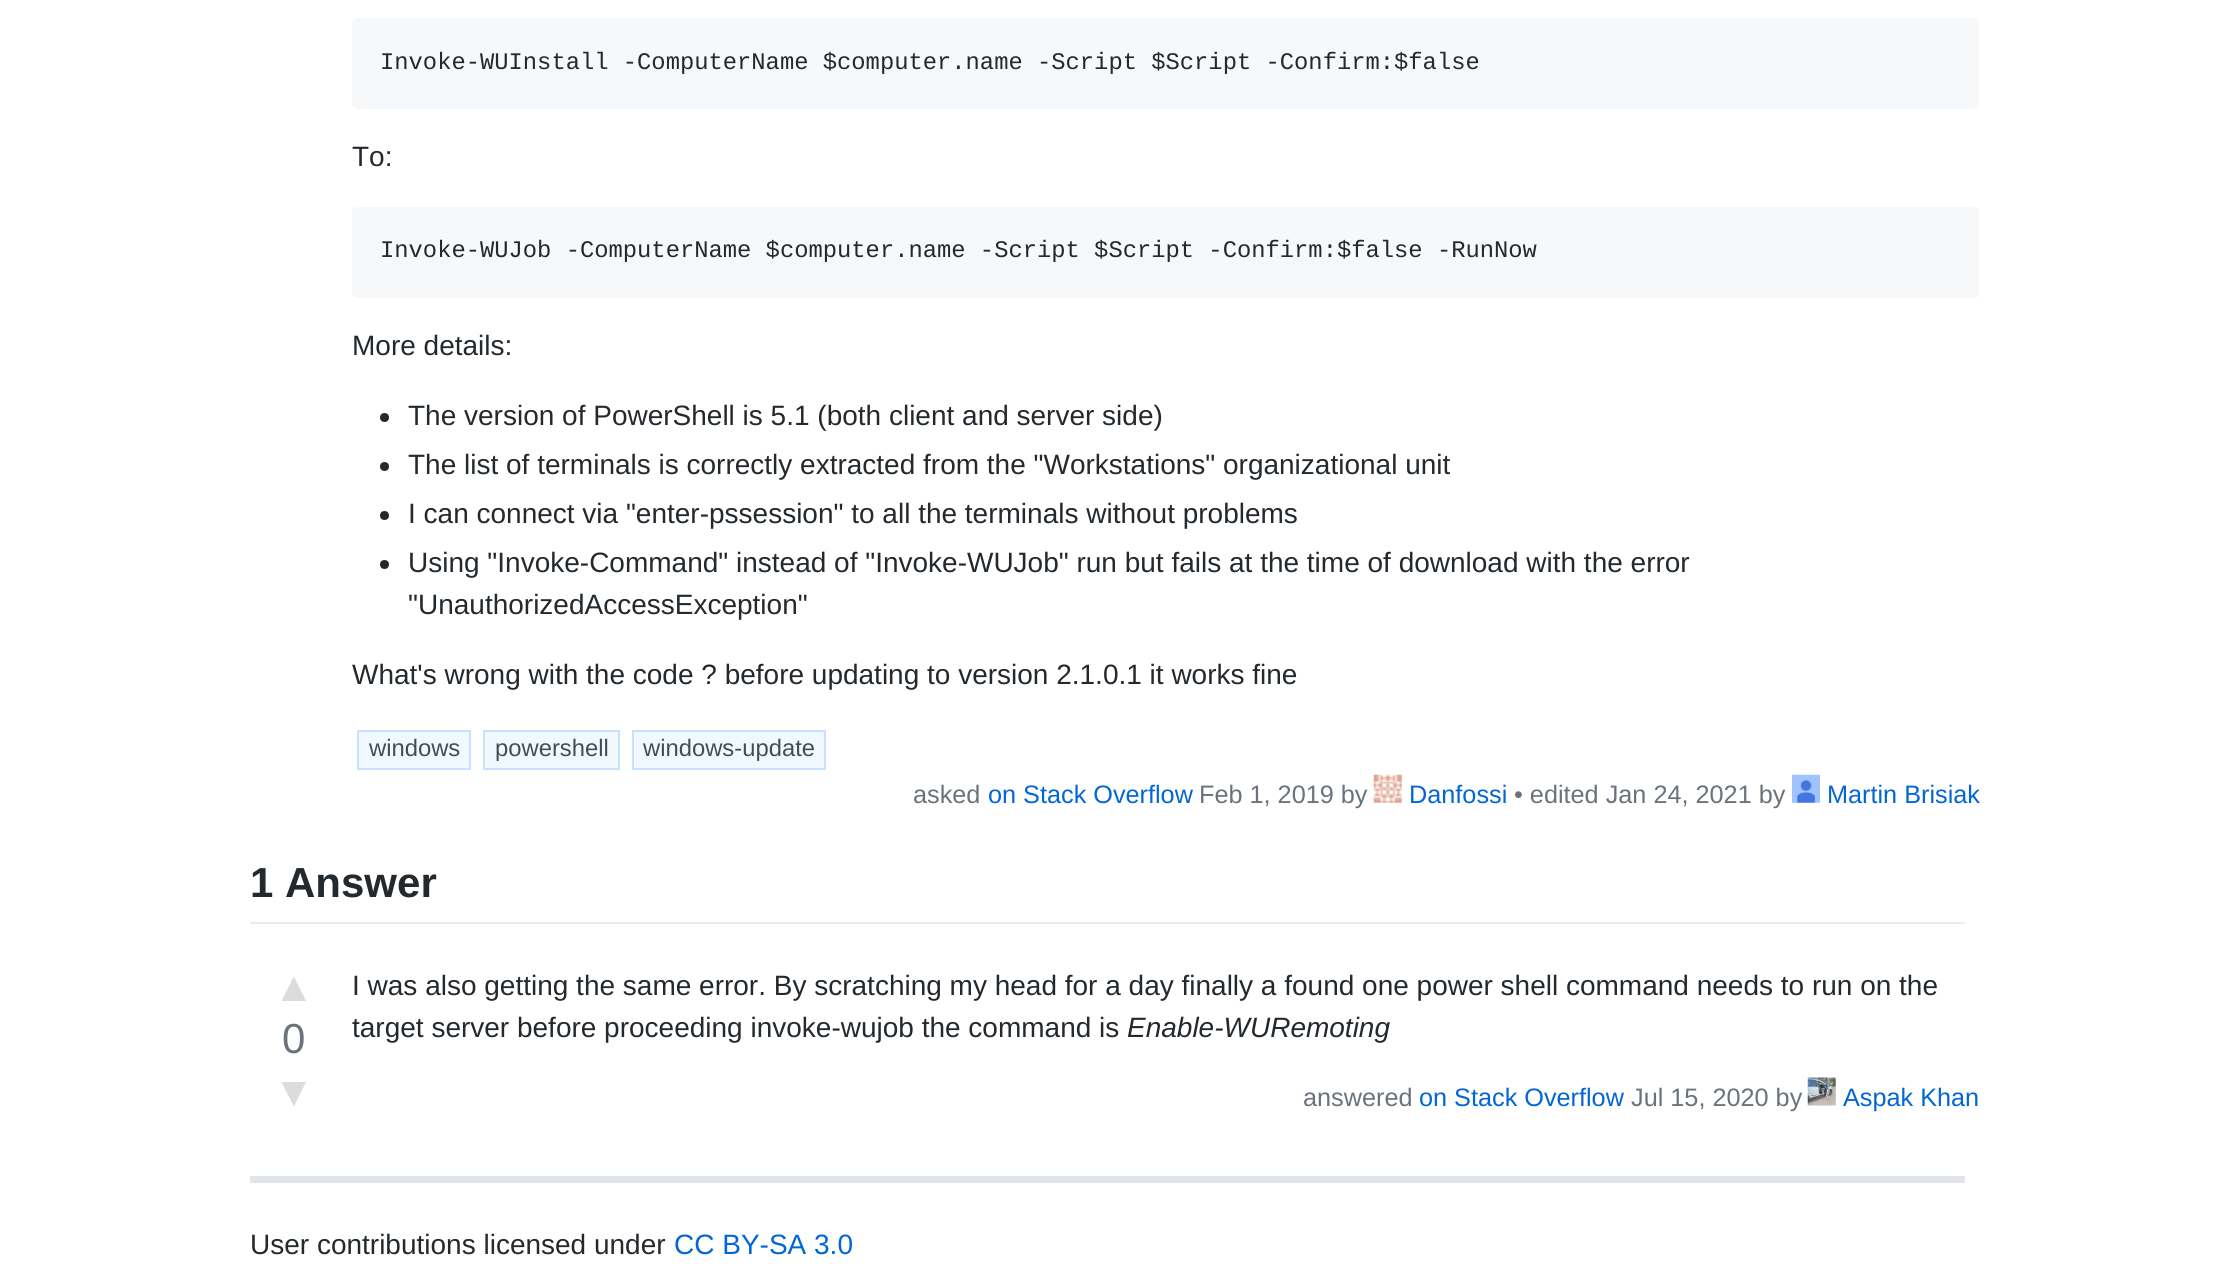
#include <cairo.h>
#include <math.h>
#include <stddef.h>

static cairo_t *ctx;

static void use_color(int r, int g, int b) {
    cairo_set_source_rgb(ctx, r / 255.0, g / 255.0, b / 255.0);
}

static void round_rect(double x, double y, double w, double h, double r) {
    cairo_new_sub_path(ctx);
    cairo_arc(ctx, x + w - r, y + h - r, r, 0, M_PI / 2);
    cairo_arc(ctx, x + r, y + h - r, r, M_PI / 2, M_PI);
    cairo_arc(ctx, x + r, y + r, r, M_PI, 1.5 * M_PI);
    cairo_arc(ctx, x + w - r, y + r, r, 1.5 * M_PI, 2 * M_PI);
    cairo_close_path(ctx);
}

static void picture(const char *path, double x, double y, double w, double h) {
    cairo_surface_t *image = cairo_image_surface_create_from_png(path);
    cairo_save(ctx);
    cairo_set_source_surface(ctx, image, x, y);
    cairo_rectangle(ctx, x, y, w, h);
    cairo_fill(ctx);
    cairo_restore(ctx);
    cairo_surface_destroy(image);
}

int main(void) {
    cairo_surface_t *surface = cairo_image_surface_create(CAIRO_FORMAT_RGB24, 2214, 1266);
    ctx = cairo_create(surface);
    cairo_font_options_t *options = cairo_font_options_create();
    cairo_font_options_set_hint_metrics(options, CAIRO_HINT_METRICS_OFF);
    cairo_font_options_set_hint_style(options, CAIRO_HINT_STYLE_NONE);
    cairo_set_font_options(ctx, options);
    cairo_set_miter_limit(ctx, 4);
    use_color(255, 255, 255);
    cairo_paint(ctx);
    use_color(246, 248, 250);
    round_rect(352, 18, 1627, 91, 5);
    cairo_fill(ctx);
    cairo_select_font_face(ctx, "Liberation Mono", CAIRO_FONT_SLANT_NORMAL, CAIRO_FONT_WEIGHT_NORMAL);
    cairo_set_font_size(ctx, 23.8);
    use_color(36, 41, 46);
    cairo_move_to(ctx, 380, 69);
    cairo_show_text(ctx, "Invoke-WUInstall -ComputerName $computer.name -Script $Script -Confirm:$false");
    cairo_select_font_face(ctx, "Liberation Sans", CAIRO_FONT_SLANT_NORMAL, CAIRO_FONT_WEIGHT_NORMAL);
    cairo_set_font_size(ctx, 28);
    cairo_move_to(ctx, 352, 166);
    cairo_show_text(ctx, "To:");
    use_color(246, 248, 250);
    round_rect(352, 207, 1627, 91, 5);
    cairo_fill(ctx);
    cairo_select_font_face(ctx, "Liberation Mono", CAIRO_FONT_SLANT_NORMAL, CAIRO_FONT_WEIGHT_NORMAL);
    cairo_set_font_size(ctx, 23.8);
    use_color(36, 41, 46);
    cairo_move_to(ctx, 380, 257);
    cairo_show_text(ctx, "Invoke-WUJob -ComputerName $computer.name -Script $Script -Confirm:$false -RunNow");
    cairo_select_font_face(ctx, "Liberation Sans", CAIRO_FONT_SLANT_NORMAL, CAIRO_FONT_WEIGHT_NORMAL);
    cairo_set_font_size(ctx, 28);
    cairo_move_to(ctx, 352, 355);
    cairo_show_text(ctx, "More details:");
    cairo_new_path(ctx);
    cairo_arc(ctx, 384.5, 417.5, 4.5, 0, 2 * M_PI);
    cairo_fill(ctx);
    cairo_move_to(ctx, 408, 425);
    cairo_show_text(ctx, "The version of PowerShell is 5.1 (both client and server side)");
    cairo_new_path(ctx);
    cairo_arc(ctx, 384.5, 466.5, 4.5, 0, 2 * M_PI);
    cairo_fill(ctx);
    cairo_move_to(ctx, 408, 474);
    cairo_show_text(ctx, "The list of terminals is correctly extracted from the \"Workstations\" organizational unit");
    cairo_new_path(ctx);
    cairo_arc(ctx, 384.5, 515.5, 4.5, 0, 2 * M_PI);
    cairo_fill(ctx);
    cairo_move_to(ctx, 408, 523);
    cairo_show_text(ctx, "I can connect via \"enter-pssession\" to all the terminals without problems");
    cairo_new_path(ctx);
    cairo_arc(ctx, 384.5, 564.5, 4.5, 0, 2 * M_PI);
    cairo_fill(ctx);
    cairo_move_to(ctx, 408, 572);
    cairo_show_text(ctx, "Using \"Invoke-Command\" instead of \"Invoke-WUJob\" run but fails at the time of download with the error");
    cairo_move_to(ctx, 408, 614);
    cairo_show_text(ctx, "\"UnauthorizedAccessException\"");
    cairo_move_to(ctx, 352, 684);
    cairo_show_text(ctx, "What's wrong with the code ? before updating to version 2.1.0.1 it works fine");
    use_color(241, 248, 255);
    cairo_rectangle(ctx, 358, 731, 112, 38);
    cairo_fill_preserve(ctx);
    use_color(200, 225, 255);
    cairo_stroke(ctx);
    cairo_set_font_size(ctx, 23.8);
    use_color(68, 77, 86);
    cairo_move_to(ctx, 369, 756);
    cairo_show_text(ctx, "windows");
    use_color(241, 248, 255);
    cairo_rectangle(ctx, 484, 731, 135, 38);
    cairo_fill_preserve(ctx);
    use_color(200, 225, 255);
    cairo_stroke(ctx);
    use_color(68, 77, 86);
    cairo_move_to(ctx, 495, 756);
    cairo_show_text(ctx, "powershell");
    use_color(241, 248, 255);
    cairo_rectangle(ctx, 633, 731, 192, 38);
    cairo_fill_preserve(ctx);
    use_color(200, 225, 255);
    cairo_stroke(ctx);
    use_color(68, 77, 86);
    cairo_move_to(ctx, 643, 756);
    cairo_show_text(ctx, "windows-update");
    cairo_set_font_size(ctx, 25.25);
    use_color(106, 115, 124);
    cairo_move_to(ctx, 913, 803);
    cairo_show_text(ctx, "asked");
    use_color(3, 102, 214);
    cairo_move_to(ctx, 988, 803);
    cairo_show_text(ctx, "on Stack Overflow");
    use_color(106, 115, 124);
    cairo_move_to(ctx, 1199, 803);
    cairo_show_text(ctx, "Feb 1, 2019 by");
    picture("img1.png", 1373, 774, 29, 29);
    use_color(3, 102, 214);
    cairo_move_to(ctx, 1409, 803);
    cairo_show_text(ctx, "Danfossi");
    use_color(106, 115, 124);
    cairo_move_to(ctx, 1514, 803);
    cairo_show_text(ctx, "• edited Jan 24, 2021 by");
    picture("img2.png", 1792, 774, 28, 29);
    use_color(3, 102, 214);
    cairo_move_to(ctx, 1827, 803);
    cairo_show_text(ctx, "Martin Brisiak");
    use_color(234, 236, 239);
    cairo_rectangle(ctx, 250, 922, 1715, 2);
    cairo_fill(ctx);
    cairo_select_font_face(ctx, "Liberation Sans", CAIRO_FONT_SLANT_NORMAL, CAIRO_FONT_WEIGHT_BOLD);
    cairo_set_font_size(ctx, 42);
    use_color(36, 41, 46);
    cairo_move_to(ctx, 250, 897);
    cairo_show_text(ctx, "1 Answer");
    cairo_select_font_face(ctx, "Liberation Sans", CAIRO_FONT_SLANT_NORMAL, CAIRO_FONT_WEIGHT_NORMAL);
    use_color(218, 220, 222);
    cairo_move_to(ctx, 273, 1001);
    cairo_show_text(ctx, "▲");
    use_color(106, 115, 124);
    cairo_move_to(ctx, 282, 1053);
    cairo_show_text(ctx, "0");
    use_color(218, 220, 222);
    cairo_move_to(ctx, 273, 1106);
    cairo_show_text(ctx, "▼");
    cairo_set_font_size(ctx, 28);
    use_color(36, 41, 46);
    cairo_move_to(ctx, 352, 995);
    cairo_show_text(ctx, "I was also getting the same error. By scratching my head for a day finally a found one power shell command needs to run on the");
    cairo_move_to(ctx, 352, 1037);
    cairo_show_text(ctx, "target server before proceeding invoke-wujob the command is");
    cairo_select_font_face(ctx, "Liberation Sans", CAIRO_FONT_SLANT_ITALIC, CAIRO_FONT_WEIGHT_NORMAL);
    cairo_move_to(ctx, 1127, 1037);
    cairo_show_text(ctx, "Enable-WURemoting");
    cairo_select_font_face(ctx, "Liberation Sans", CAIRO_FONT_SLANT_NORMAL, CAIRO_FONT_WEIGHT_NORMAL);
    cairo_set_font_size(ctx, 25.25);
    use_color(106, 115, 124);
    cairo_move_to(ctx, 1303, 1106);
    cairo_show_text(ctx, "answered");
    use_color(3, 102, 214);
    cairo_move_to(ctx, 1419, 1106);
    cairo_show_text(ctx, "on Stack Overflow");
    use_color(106, 115, 124);
    cairo_move_to(ctx, 1631, 1106);
    cairo_show_text(ctx, "Jul 15, 2020 by");
    picture("img3.png", 1807, 1077, 29, 29);
    use_color(3, 102, 214);
    cairo_move_to(ctx, 1843, 1106);
    cairo_show_text(ctx, "Aspak Khan");
    use_color(225, 228, 232);
    cairo_rectangle(ctx, 250, 1176, 1715, 7);
    cairo_fill(ctx);
    cairo_set_font_size(ctx, 28);
    use_color(36, 41, 46);
    cairo_move_to(ctx, 250, 1254);
    cairo_show_text(ctx, "User contributions licensed under");
    use_color(3, 102, 214);
    cairo_move_to(ctx, 674, 1254);
    cairo_show_text(ctx, "CC BY-SA 3.0");
    cairo_surface_write_to_png(surface, "result.png");
    cairo_font_options_destroy(options);
    cairo_destroy(ctx);
    cairo_surface_destroy(surface);
    return 0;
}
